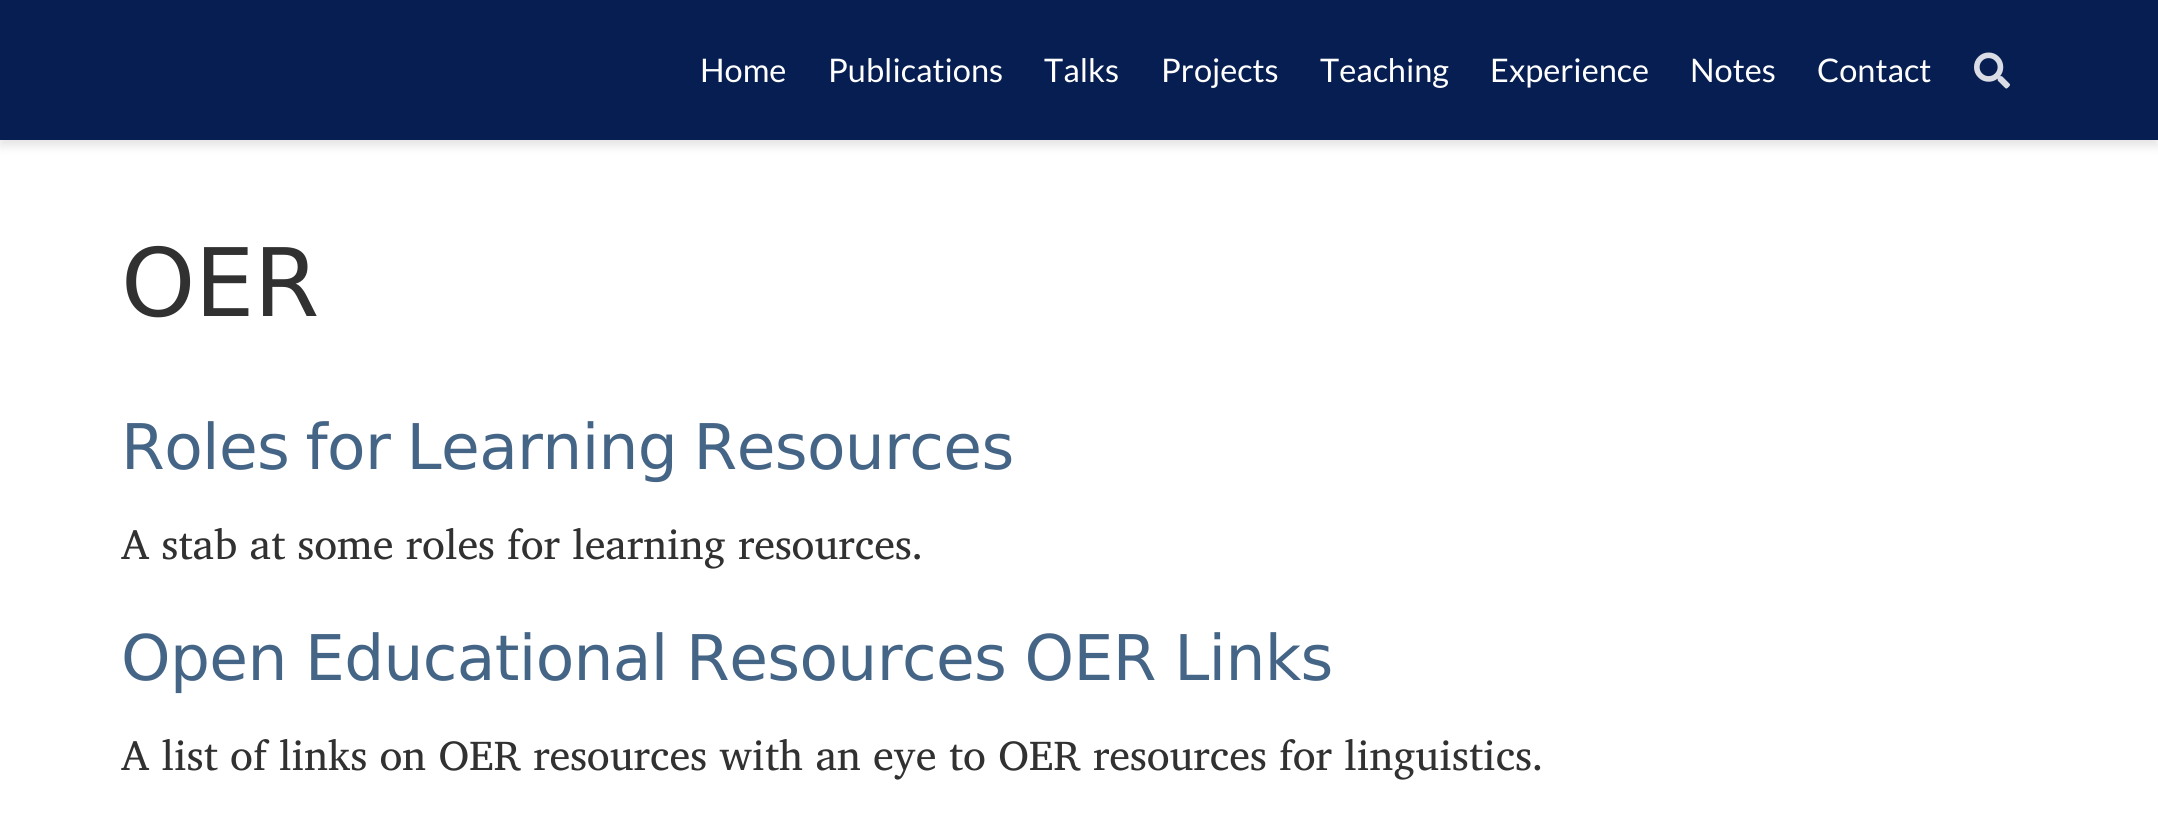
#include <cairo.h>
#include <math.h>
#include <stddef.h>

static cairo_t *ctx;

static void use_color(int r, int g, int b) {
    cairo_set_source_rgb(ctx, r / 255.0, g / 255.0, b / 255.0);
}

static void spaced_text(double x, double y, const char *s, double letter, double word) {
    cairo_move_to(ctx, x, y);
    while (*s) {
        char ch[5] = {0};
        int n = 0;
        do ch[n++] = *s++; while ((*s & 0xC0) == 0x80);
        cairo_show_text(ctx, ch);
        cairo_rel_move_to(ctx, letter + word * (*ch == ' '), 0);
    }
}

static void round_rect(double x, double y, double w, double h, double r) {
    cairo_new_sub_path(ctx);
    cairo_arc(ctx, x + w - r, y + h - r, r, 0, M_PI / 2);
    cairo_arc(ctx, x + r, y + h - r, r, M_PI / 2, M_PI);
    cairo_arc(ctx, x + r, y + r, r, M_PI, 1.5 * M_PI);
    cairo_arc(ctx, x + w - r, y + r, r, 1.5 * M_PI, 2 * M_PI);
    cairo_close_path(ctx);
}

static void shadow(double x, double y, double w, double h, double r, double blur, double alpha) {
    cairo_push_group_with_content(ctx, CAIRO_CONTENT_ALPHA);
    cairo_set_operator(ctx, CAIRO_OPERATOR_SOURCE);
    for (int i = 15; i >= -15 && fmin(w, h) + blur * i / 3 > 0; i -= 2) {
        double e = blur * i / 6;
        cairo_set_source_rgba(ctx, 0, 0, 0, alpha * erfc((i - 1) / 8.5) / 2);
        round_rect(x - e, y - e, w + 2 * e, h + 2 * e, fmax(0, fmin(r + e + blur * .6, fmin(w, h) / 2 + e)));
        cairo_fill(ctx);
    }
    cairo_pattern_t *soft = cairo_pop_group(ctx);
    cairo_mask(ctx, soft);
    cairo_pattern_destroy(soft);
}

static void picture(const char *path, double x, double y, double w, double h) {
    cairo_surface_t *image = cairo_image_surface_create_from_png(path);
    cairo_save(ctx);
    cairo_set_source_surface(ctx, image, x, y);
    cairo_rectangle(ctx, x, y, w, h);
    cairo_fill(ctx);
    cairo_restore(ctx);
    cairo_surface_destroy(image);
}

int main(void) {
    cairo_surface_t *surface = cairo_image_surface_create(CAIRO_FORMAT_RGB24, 2158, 813);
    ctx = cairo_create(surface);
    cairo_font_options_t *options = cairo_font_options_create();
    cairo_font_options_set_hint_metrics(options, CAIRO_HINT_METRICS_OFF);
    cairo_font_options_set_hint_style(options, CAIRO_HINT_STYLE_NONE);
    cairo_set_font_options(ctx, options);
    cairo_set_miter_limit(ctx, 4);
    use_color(255, 255, 255);
    cairo_paint(ctx);
    use_color(0, 0, 0);
    shadow(0, 6, 2158, 140, 0, 5, 0.11);
    use_color(7, 30, 82);
    cairo_rectangle(ctx, 0, 0, 2158, 140);
    cairo_fill(ctx);
    cairo_select_font_face(ctx, "Lato", CAIRO_FONT_SLANT_NORMAL, CAIRO_FONT_WEIGHT_NORMAL);
    cairo_set_font_size(ctx, 32.5);
    use_color(255, 255, 255);
    cairo_move_to(ctx, 700, 82);
    cairo_show_text(ctx, "Home");
    cairo_move_to(ctx, 828, 82);
    cairo_show_text(ctx, "Publications");
    cairo_move_to(ctx, 1044, 82);
    cairo_show_text(ctx, "Talks");
    cairo_move_to(ctx, 1161, 82);
    cairo_show_text(ctx, "Projects");
    cairo_move_to(ctx, 1320, 82);
    cairo_show_text(ctx, "Teaching");
    cairo_move_to(ctx, 1490, 82);
    cairo_show_text(ctx, "Experience");
    cairo_move_to(ctx, 1690, 82);
    cairo_show_text(ctx, "Notes");
    cairo_move_to(ctx, 1817, 82);
    cairo_show_text(ctx, "Contact");
    picture("img1.png", 1974, 52, 36, 37);
    cairo_select_font_face(ctx, "DejaVu Sans", CAIRO_FONT_SLANT_NORMAL, CAIRO_FONT_WEIGHT_NORMAL);
    cairo_set_font_size(ctx, 94.5);
    use_color(49, 49, 49);
    spaced_text(121, 316, "OER", -0.65, 0);
    cairo_set_font_size(ctx, 63);
    use_color(69, 101, 135);
    spaced_text(121, 469, "Roles for Learning Resources", -0.65, -3);
    cairo_select_font_face(ctx, "Charis SIL", CAIRO_FONT_SLANT_NORMAL, CAIRO_FONT_WEIGHT_NORMAL);
    cairo_set_font_size(ctx, 42);
    use_color(49, 49, 49);
    cairo_move_to(ctx, 121, 559);
    cairo_show_text(ctx, "A stab at some roles for learning resources.");
    cairo_select_font_face(ctx, "DejaVu Sans", CAIRO_FONT_SLANT_NORMAL, CAIRO_FONT_WEIGHT_NORMAL);
    cairo_set_font_size(ctx, 63);
    use_color(69, 101, 135);
    spaced_text(121, 680, "Open Educational Resources OER Links", -0.65, -1);
    cairo_select_font_face(ctx, "Charis SIL", CAIRO_FONT_SLANT_NORMAL, CAIRO_FONT_WEIGHT_NORMAL);
    cairo_set_font_size(ctx, 42);
    use_color(49, 49, 49);
    cairo_move_to(ctx, 121, 770);
    cairo_show_text(ctx, "A list of links on OER resources with an eye to OER resources for linguistics.");
    cairo_surface_write_to_png(surface, "result.png");
    cairo_font_options_destroy(options);
    cairo_destroy(ctx);
    cairo_surface_destroy(surface);
    return 0;
}
